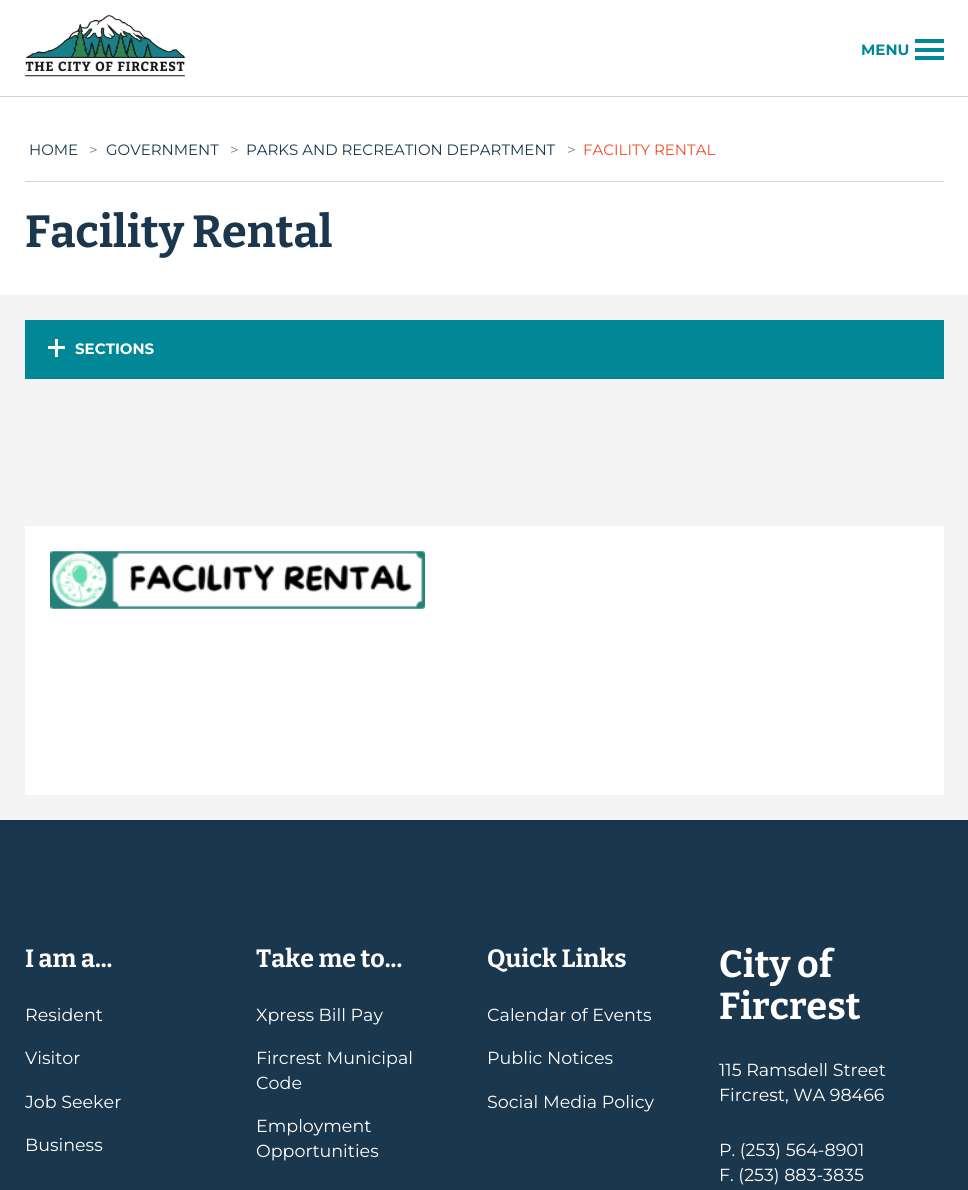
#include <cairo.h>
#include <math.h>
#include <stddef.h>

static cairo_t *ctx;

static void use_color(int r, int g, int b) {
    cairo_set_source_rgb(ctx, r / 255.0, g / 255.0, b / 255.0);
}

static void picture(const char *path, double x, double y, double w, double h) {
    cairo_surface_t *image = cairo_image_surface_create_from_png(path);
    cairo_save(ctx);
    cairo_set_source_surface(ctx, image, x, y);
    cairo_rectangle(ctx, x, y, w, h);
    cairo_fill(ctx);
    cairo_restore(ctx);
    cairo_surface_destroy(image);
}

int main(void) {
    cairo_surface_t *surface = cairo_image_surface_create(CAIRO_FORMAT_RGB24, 968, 1190);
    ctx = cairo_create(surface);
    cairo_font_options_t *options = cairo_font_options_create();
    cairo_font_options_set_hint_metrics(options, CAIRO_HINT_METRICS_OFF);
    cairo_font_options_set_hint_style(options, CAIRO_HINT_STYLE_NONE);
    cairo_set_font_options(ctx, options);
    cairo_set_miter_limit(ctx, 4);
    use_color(244, 244, 244);
    cairo_paint(ctx);
    use_color(255, 255, 255);
    cairo_rectangle(ctx, 0, 0, 968, 295);
    cairo_fill(ctx);
    use_color(212, 212, 212);
    cairo_rectangle(ctx, 0, 96, 968, 1);
    cairo_fill(ctx);
    picture("img1.png", 25, 15, 160, 62);
    cairo_select_font_face(ctx, "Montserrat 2 Thin", CAIRO_FONT_SLANT_NORMAL, CAIRO_FONT_WEIGHT_NORMAL);
    cairo_set_font_size(ctx, 15);
    use_color(0, 136, 151);
    cairo_move_to(ctx, 861, 55);
    cairo_show_text(ctx, "MENU");
    cairo_rectangle(ctx, 915, 39, 29, 4);
    cairo_fill(ctx);
    cairo_rectangle(ctx, 915, 48, 29, 4);
    cairo_fill(ctx);
    cairo_rectangle(ctx, 915, 56, 29, 4);
    cairo_fill(ctx);
    use_color(212, 212, 212);
    cairo_rectangle(ctx, 25, 181, 919, 1);
    cairo_fill(ctx);
    cairo_select_font_face(ctx, "Montserrat Thin", CAIRO_FONT_SLANT_NORMAL, CAIRO_FONT_WEIGHT_NORMAL);
    use_color(26, 55, 77);
    cairo_move_to(ctx, 29, 155);
    cairo_show_text(ctx, "HOME");
    use_color(135, 135, 135);
    cairo_move_to(ctx, 89, 155);
    cairo_show_text(ctx, ">");
    use_color(26, 55, 77);
    cairo_move_to(ctx, 106, 155);
    cairo_show_text(ctx, "GOVERNMENT");
    use_color(135, 135, 135);
    cairo_move_to(ctx, 230, 155);
    cairo_show_text(ctx, ">");
    use_color(26, 55, 77);
    cairo_move_to(ctx, 246, 155);
    cairo_show_text(ctx, "PARKS AND RECREATION DEPARTMENT");
    use_color(135, 135, 135);
    cairo_move_to(ctx, 567, 155);
    cairo_show_text(ctx, ">");
    use_color(241, 79, 37);
    cairo_move_to(ctx, 583, 155);
    cairo_show_text(ctx, "FACILITY RENTAL");
    cairo_select_font_face(ctx, "Bitter Thin", CAIRO_FONT_SLANT_NORMAL, CAIRO_FONT_WEIGHT_NORMAL);
    cairo_set_font_size(ctx, 45);
    use_color(26, 55, 77);
    cairo_move_to(ctx, 25, 247);
    cairo_show_text(ctx, "Facility Rental");
    use_color(0, 136, 151);
    cairo_rectangle(ctx, 25, 320, 919, 59);
    cairo_fill(ctx);
    use_color(255, 255, 255);
    cairo_rectangle(ctx, 55, 339, 3, 18);
    cairo_fill(ctx);
    cairo_select_font_face(ctx, "Montserrat 2 Thin", CAIRO_FONT_SLANT_NORMAL, CAIRO_FONT_WEIGHT_NORMAL);
    cairo_set_font_size(ctx, 15);
    cairo_move_to(ctx, 75, 354);
    cairo_show_text(ctx, "SECTIONS");
    cairo_rectangle(ctx, 48, 346, 17, 3);
    cairo_fill(ctx);
    cairo_rectangle(ctx, 25, 526, 919, 269);
    cairo_fill(ctx);
    picture("img2.png", 50, 551, 375, 58);
    use_color(26, 55, 77);
    cairo_rectangle(ctx, 0, 820, 968, 370);
    cairo_fill(ctx);
    cairo_select_font_face(ctx, "Bitter Thin", CAIRO_FONT_SLANT_NORMAL, CAIRO_FONT_WEIGHT_NORMAL);
    cairo_set_font_size(ctx, 25);
    use_color(255, 255, 255);
    cairo_move_to(ctx, 25, 967);
    cairo_show_text(ctx, "I am a...");
    cairo_select_font_face(ctx, "Montserrat Thin", CAIRO_FONT_SLANT_NORMAL, CAIRO_FONT_WEIGHT_NORMAL);
    cairo_set_font_size(ctx, 17.5);
    cairo_move_to(ctx, 25, 1021);
    cairo_show_text(ctx, "Resident");
    cairo_move_to(ctx, 25, 1064);
    cairo_show_text(ctx, "Visitor");
    cairo_move_to(ctx, 25, 1108);
    cairo_show_text(ctx, "Job Seeker");
    cairo_move_to(ctx, 25, 1151);
    cairo_show_text(ctx, "Business");
    cairo_select_font_face(ctx, "Bitter Thin", CAIRO_FONT_SLANT_NORMAL, CAIRO_FONT_WEIGHT_NORMAL);
    cairo_set_font_size(ctx, 25);
    cairo_move_to(ctx, 256, 967);
    cairo_show_text(ctx, "Take me to...");
    cairo_select_font_face(ctx, "Montserrat Thin", CAIRO_FONT_SLANT_NORMAL, CAIRO_FONT_WEIGHT_NORMAL);
    cairo_set_font_size(ctx, 17.5);
    cairo_move_to(ctx, 256, 1021);
    cairo_show_text(ctx, "Xpress Bill Pay");
    cairo_move_to(ctx, 256, 1064);
    cairo_show_text(ctx, "Fircrest Municipal");
    cairo_move_to(ctx, 256, 1089);
    cairo_show_text(ctx, "Code");
    cairo_move_to(ctx, 256, 1132);
    cairo_show_text(ctx, "Employment");
    cairo_move_to(ctx, 256, 1157);
    cairo_show_text(ctx, "Opportunities");
    cairo_select_font_face(ctx, "Bitter Thin", CAIRO_FONT_SLANT_NORMAL, CAIRO_FONT_WEIGHT_NORMAL);
    cairo_set_font_size(ctx, 25);
    cairo_move_to(ctx, 487, 967);
    cairo_show_text(ctx, "Quick Links");
    cairo_select_font_face(ctx, "Montserrat Thin", CAIRO_FONT_SLANT_NORMAL, CAIRO_FONT_WEIGHT_NORMAL);
    cairo_set_font_size(ctx, 17.5);
    cairo_move_to(ctx, 487, 1021);
    cairo_show_text(ctx, "Calendar of Events");
    cairo_move_to(ctx, 487, 1064);
    cairo_show_text(ctx, "Public Notices");
    cairo_move_to(ctx, 487, 1108);
    cairo_show_text(ctx, "Social Media Policy");
    cairo_select_font_face(ctx, "Bitter Thin", CAIRO_FONT_SLANT_NORMAL, CAIRO_FONT_WEIGHT_NORMAL);
    cairo_set_font_size(ctx, 37.5);
    cairo_move_to(ctx, 719, 977);
    cairo_show_text(ctx, "City of");
    cairo_move_to(ctx, 719, 1019);
    cairo_show_text(ctx, "Fircrest");
    cairo_select_font_face(ctx, "Montserrat Thin", CAIRO_FONT_SLANT_NORMAL, CAIRO_FONT_WEIGHT_NORMAL);
    cairo_set_font_size(ctx, 17.5);
    cairo_move_to(ctx, 719, 1076);
    cairo_show_text(ctx, "115 Ramsdell Street");
    cairo_move_to(ctx, 719, 1101);
    cairo_show_text(ctx, "Fircrest, WA 98466");
    cairo_move_to(ctx, 719, 1156);
    cairo_show_text(ctx, "P. (253) 564-8901");
    cairo_move_to(ctx, 719, 1181);
    cairo_show_text(ctx, "F. (253) 883-3835");
    cairo_surface_write_to_png(surface, "result.png");
    cairo_font_options_destroy(options);
    cairo_destroy(ctx);
    cairo_surface_destroy(surface);
    return 0;
}
